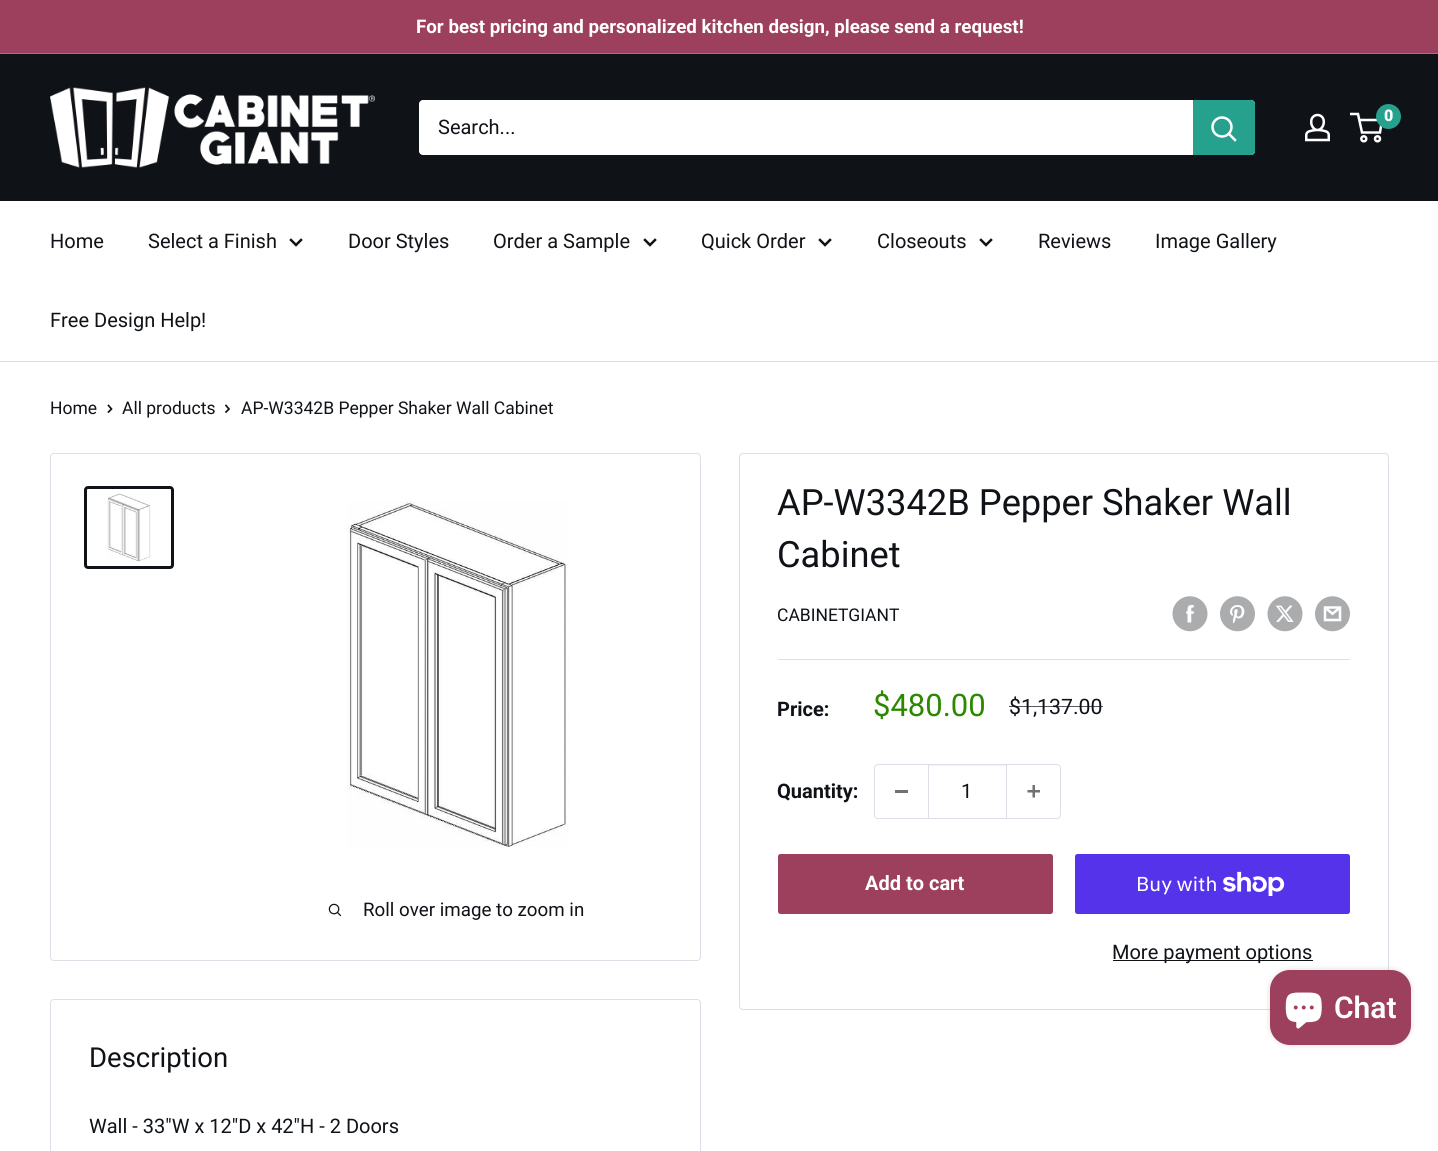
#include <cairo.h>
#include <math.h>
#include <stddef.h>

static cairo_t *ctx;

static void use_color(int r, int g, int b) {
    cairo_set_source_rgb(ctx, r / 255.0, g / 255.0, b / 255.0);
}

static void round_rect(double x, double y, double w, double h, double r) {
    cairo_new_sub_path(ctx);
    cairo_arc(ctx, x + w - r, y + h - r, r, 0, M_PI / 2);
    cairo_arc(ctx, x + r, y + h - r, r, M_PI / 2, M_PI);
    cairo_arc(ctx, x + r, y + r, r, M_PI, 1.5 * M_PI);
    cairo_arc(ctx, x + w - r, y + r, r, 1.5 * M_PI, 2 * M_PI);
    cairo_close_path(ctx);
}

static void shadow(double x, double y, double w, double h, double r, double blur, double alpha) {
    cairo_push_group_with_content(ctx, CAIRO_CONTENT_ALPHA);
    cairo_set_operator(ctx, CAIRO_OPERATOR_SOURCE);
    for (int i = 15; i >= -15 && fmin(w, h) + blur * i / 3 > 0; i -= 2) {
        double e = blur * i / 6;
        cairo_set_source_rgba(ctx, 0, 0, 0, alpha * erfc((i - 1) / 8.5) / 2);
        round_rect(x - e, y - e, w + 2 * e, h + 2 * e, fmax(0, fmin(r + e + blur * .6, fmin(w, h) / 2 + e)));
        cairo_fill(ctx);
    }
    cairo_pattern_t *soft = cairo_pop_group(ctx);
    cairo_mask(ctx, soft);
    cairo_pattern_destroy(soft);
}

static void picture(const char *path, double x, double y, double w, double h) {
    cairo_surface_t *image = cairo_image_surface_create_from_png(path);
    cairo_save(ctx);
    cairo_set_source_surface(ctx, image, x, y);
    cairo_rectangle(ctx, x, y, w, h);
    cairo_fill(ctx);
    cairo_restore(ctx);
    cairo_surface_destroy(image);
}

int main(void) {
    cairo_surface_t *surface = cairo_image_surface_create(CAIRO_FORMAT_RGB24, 1438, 1151);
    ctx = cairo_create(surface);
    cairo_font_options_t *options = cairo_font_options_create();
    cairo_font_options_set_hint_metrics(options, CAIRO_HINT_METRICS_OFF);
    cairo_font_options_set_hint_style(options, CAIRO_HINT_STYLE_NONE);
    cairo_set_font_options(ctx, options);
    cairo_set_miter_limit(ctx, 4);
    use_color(255, 255, 255);
    cairo_paint(ctx);
    use_color(156, 64, 93);
    cairo_rectangle(ctx, 0, 0, 1438, 53);
    cairo_fill(ctx);
    use_color(175, 112, 134);
    cairo_rectangle(ctx, 0, 53, 1438, 1);
    cairo_fill(ctx);
    cairo_select_font_face(ctx, "Roboto", CAIRO_FONT_SLANT_NORMAL, CAIRO_FONT_WEIGHT_BOLD);
    cairo_set_font_size(ctx, 18.75);
    use_color(255, 255, 255);
    cairo_move_to(ctx, 416, 33);
    cairo_show_text(ctx, "For best pricing and personalized kitchen design, please send a request!");
    use_color(15, 18, 23);
    cairo_rectangle(ctx, 0, 54, 1438, 147);
    cairo_fill(ctx);
    picture("img1.png", 50, 87, 325, 81);
    picture("img2.png", 1305, 113, 25, 29);
    cairo_arc(ctx, 1363.8, 138.8, 2.5, 0, 2 * M_PI);
    use_color(255, 255, 255);
    cairo_set_line_width(ctx, 2.5);
    cairo_stroke(ctx);
    cairo_arc(ctx, 1377.5, 138.8, 2.5, 0, 2 * M_PI);
    cairo_stroke(ctx);
    cairo_new_path(ctx);
    cairo_move_to(ctx, 1359, 120);
    cairo_line_to(ctx, 1382, 120);
    cairo_line_to(ctx, 1380, 132.5);
    cairo_line_to(ctx, 1362, 132.5);
    cairo_line_to(ctx, 1358, 114);
    cairo_line_to(ctx, 1350, 114);
    cairo_stroke(ctx);
    use_color(37, 161, 142);
    cairo_arc(ctx, 1388.5, 116.5, 12.5, 0, 2 * M_PI);
    cairo_fill(ctx);
    cairo_select_font_face(ctx, "Roboto Black", CAIRO_FONT_SLANT_NORMAL, CAIRO_FONT_WEIGHT_NORMAL);
    cairo_set_font_size(ctx, 16);
    use_color(255, 255, 255);
    cairo_move_to(ctx, 1384, 121);
    cairo_show_text(ctx, "0");
    round_rect(419, 100, 836, 55, 4);
    cairo_fill(ctx);
    cairo_select_font_face(ctx, "Roboto", CAIRO_FONT_SLANT_NORMAL, CAIRO_FONT_WEIGHT_NORMAL);
    cairo_set_font_size(ctx, 20);
    use_color(15, 18, 23);
    cairo_move_to(ctx, 438, 134);
    cairo_show_text(ctx, "Search...");
    use_color(37, 161, 142);
    cairo_new_path(ctx);
    cairo_move_to(ctx, 1193, 100);
    cairo_line_to(ctx, 1251, 100);
    cairo_curve_to(ctx, 1253, 100, 1255, 102, 1255, 104);
    cairo_line_to(ctx, 1255, 151);
    cairo_curve_to(ctx, 1255, 153, 1253, 155, 1251, 155);
    cairo_line_to(ctx, 1193, 155);
    cairo_close_path(ctx);
    cairo_fill(ctx);
    cairo_new_path(ctx);
    cairo_move_to(ctx, 1235, 140);
    cairo_line_to(ctx, 1229, 134);
    use_color(255, 255, 255);
    cairo_set_line_cap(ctx, CAIRO_LINE_CAP_SQUARE);
    cairo_stroke(ctx);
    cairo_arc(ctx, 1222, 127, 9.5, 0, 2 * M_PI);
    cairo_set_line_cap(ctx, CAIRO_LINE_CAP_BUTT);
    cairo_stroke(ctx);
    use_color(219, 224, 230);
    cairo_rectangle(ctx, 0, 361, 1438, 1);
    cairo_fill(ctx);
    use_color(15, 18, 23);
    cairo_move_to(ctx, 50, 248);
    cairo_show_text(ctx, "Home");
    cairo_move_to(ctx, 148, 248);
    cairo_show_text(ctx, "Select a Finish");
    cairo_new_path(ctx);
    cairo_move_to(ctx, 301, 240);
    cairo_line_to(ctx, 296, 245);
    cairo_line_to(ctx, 291, 240);
    cairo_set_line_cap(ctx, CAIRO_LINE_CAP_SQUARE);
    cairo_stroke(ctx);
    cairo_move_to(ctx, 348, 248);
    cairo_show_text(ctx, "Door Styles");
    cairo_move_to(ctx, 493, 248);
    cairo_show_text(ctx, "Order a Sample");
    cairo_new_path(ctx);
    cairo_move_to(ctx, 655, 240);
    cairo_line_to(ctx, 650, 245);
    cairo_line_to(ctx, 645, 240);
    cairo_stroke(ctx);
    cairo_move_to(ctx, 701, 248);
    cairo_show_text(ctx, "Quick Order");
    cairo_new_path(ctx);
    cairo_move_to(ctx, 830, 240);
    cairo_line_to(ctx, 825, 245);
    cairo_line_to(ctx, 820, 240);
    cairo_stroke(ctx);
    cairo_move_to(ctx, 877, 248);
    cairo_show_text(ctx, "Closeouts");
    cairo_new_path(ctx);
    cairo_move_to(ctx, 991, 240);
    cairo_line_to(ctx, 986, 245);
    cairo_line_to(ctx, 981, 240);
    cairo_stroke(ctx);
    cairo_move_to(ctx, 1038, 248);
    cairo_show_text(ctx, "Reviews");
    cairo_move_to(ctx, 1155, 248);
    cairo_show_text(ctx, "Image Gallery");
    cairo_move_to(ctx, 50, 327);
    cairo_show_text(ctx, "Free Design Help!");
    cairo_set_font_size(ctx, 17.5);
    cairo_move_to(ctx, 50, 414);
    cairo_show_text(ctx, "Home");
    cairo_new_path(ctx);
    cairo_move_to(ctx, 108.5, 405.5);
    cairo_line_to(ctx, 111.5, 409);
    cairo_line_to(ctx, 108.5, 412);
    cairo_set_line_width(ctx, 1.7);
    cairo_stroke(ctx);
    cairo_move_to(ctx, 122, 414);
    cairo_show_text(ctx, "All products");
    cairo_new_path(ctx);
    cairo_move_to(ctx, 226, 405.5);
    cairo_line_to(ctx, 229, 409);
    cairo_line_to(ctx, 226, 412);
    cairo_stroke(ctx);
    cairo_move_to(ctx, 241, 414);
    cairo_show_text(ctx, "AP-W3342B Pepper Shaker Wall Cabinet");
    round_rect(50.5, 453.5, 650, 507, 3.5);
    use_color(219, 224, 230);
    cairo_set_line_width(ctx, 1);
    cairo_set_line_cap(ctx, CAIRO_LINE_CAP_BUTT);
    cairo_stroke(ctx);
    round_rect(85.5, 487.5, 87, 80, 2.5);
    use_color(15, 18, 23);
    cairo_set_line_width(ctx, 3);
    cairo_stroke(ctx);
    picture("img3.png", 107, 493, 44, 69);
    picture("img4.png", 347, 501, 222, 346);
    picture("img5.png", 328, 903, 14, 14);
    cairo_set_font_size(ctx, 18.75);
    cairo_move_to(ctx, 363, 916);
    cairo_show_text(ctx, "Roll over image to zoom in");
    round_rect(739.5, 453.5, 649, 556, 3.5);
    use_color(219, 224, 230);
    cairo_set_line_width(ctx, 1);
    cairo_stroke(ctx);
    cairo_set_font_size(ctx, 36.25);
    use_color(15, 18, 23);
    cairo_move_to(ctx, 777, 515);
    cairo_show_text(ctx, "AP-W3342B Pepper Shaker Wall");
    cairo_move_to(ctx, 777, 567);
    cairo_show_text(ctx, "Cabinet");
    cairo_set_font_size(ctx, 17.5);
    cairo_move_to(ctx, 777, 621);
    cairo_show_text(ctx, "CABINETGIANT");
    picture("img6.png", 1172, 596, 36, 36);
    picture("img7.png", 1220, 596, 35, 36);
    picture("img8.png", 1267, 596, 36, 36);
    picture("img9.png", 1315, 596, 35, 36);
    use_color(219, 224, 230);
    cairo_rectangle(ctx, 778, 659, 572, 1);
    cairo_fill(ctx);
    cairo_select_font_face(ctx, "Roboto", CAIRO_FONT_SLANT_NORMAL, CAIRO_FONT_WEIGHT_BOLD);
    cairo_set_font_size(ctx, 20);
    use_color(15, 18, 23);
    cairo_move_to(ctx, 777, 716);
    cairo_show_text(ctx, "Price:");
    cairo_select_font_face(ctx, "Roboto", CAIRO_FONT_SLANT_NORMAL, CAIRO_FONT_WEIGHT_NORMAL);
    cairo_set_font_size(ctx, 31);
    use_color(43, 137, 0);
    cairo_move_to(ctx, 873, 716);
    cairo_show_text(ctx, "$480.00");
    cairo_set_font_size(ctx, 21.25);
    use_color(15, 18, 23);
    cairo_move_to(ctx, 1009, 714);
    cairo_show_text(ctx, "$1,137.00");
    cairo_set_source_rgba(ctx, 0.059, 0.071, 0.09, 0.7);
    cairo_rectangle(ctx, 1009, 706, 94, 1);
    cairo_fill(ctx);
    cairo_select_font_face(ctx, "Roboto", CAIRO_FONT_SLANT_NORMAL, CAIRO_FONT_WEIGHT_BOLD);
    cairo_set_font_size(ctx, 20);
    use_color(15, 18, 23);
    cairo_move_to(ctx, 777, 798);
    cairo_show_text(ctx, "Quantity:");
    round_rect(874.5, 764.5, 186, 54, 3.5);
    use_color(219, 224, 230);
    cairo_stroke(ctx);
    use_color(111, 113, 116);
    cairo_rectangle(ctx, 895, 790, 13, 3);
    cairo_fill(ctx);
    use_color(241, 243, 245);
    cairo_rectangle(ctx, 929, 765, 77, 1);
    cairo_fill(ctx);
    use_color(219, 224, 230);
    cairo_rectangle(ctx, 1006, 765, 1, 53);
    cairo_fill(ctx);
    cairo_rectangle(ctx, 928, 765, 1, 53);
    cairo_fill(ctx);
    cairo_select_font_face(ctx, "Roboto", CAIRO_FONT_SLANT_NORMAL, CAIRO_FONT_WEIGHT_NORMAL);
    use_color(15, 18, 23);
    cairo_move_to(ctx, 961, 798);
    cairo_show_text(ctx, "1");
    picture("img10.png", 1027, 785, 13, 13);
    use_color(156, 64, 93);
    round_rect(778, 854, 275, 60, 2.5);
    cairo_fill(ctx);
    cairo_select_font_face(ctx, "Roboto", CAIRO_FONT_SLANT_NORMAL, CAIRO_FONT_WEIGHT_BOLD);
    use_color(255, 255, 255);
    cairo_move_to(ctx, 865, 890);
    cairo_show_text(ctx, "Add to cart");
    use_color(84, 51, 235);
    round_rect(1075, 854, 275, 60, 2.5);
    cairo_fill(ctx);
    cairo_select_font_face(ctx, "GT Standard", CAIRO_FONT_SLANT_NORMAL, CAIRO_FONT_WEIGHT_NORMAL);
    use_color(255, 255, 255);
    cairo_move_to(ctx, 1136, 891);
    cairo_show_text(ctx, "Buy with");
    picture("img11.png", 1223, 871, 62, 25);
    use_color(15, 18, 23);
    cairo_rectangle(ctx, 1113, 960, 200, 1);
    cairo_fill(ctx);
    cairo_select_font_face(ctx, "Roboto", CAIRO_FONT_SLANT_NORMAL, CAIRO_FONT_WEIGHT_NORMAL);
    cairo_move_to(ctx, 1112, 959);
    cairo_show_text(ctx, "More payment options");
    round_rect(50.5, 999.5, 650, 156, 3.5);
    use_color(219, 224, 230);
    cairo_stroke(ctx);
    cairo_set_font_size(ctx, 27.5);
    use_color(15, 18, 23);
    cairo_move_to(ctx, 89, 1067);
    cairo_show_text(ctx, "Description");
    cairo_set_font_size(ctx, 20);
    cairo_move_to(ctx, 89, 1133);
    cairo_show_text(ctx, "Wall - 33\"W x 12\"D x 42\"H - 2 Doors");
    use_color(0, 0, 0);
    shadow(1270, 970, 141, 75, 20, 3, 0.15);
    use_color(156, 64, 93);
    round_rect(1270, 970, 141, 75, 20);
    cairo_fill(ctx);
    picture("img12.png", 1285, 992, 37, 37);
    cairo_select_font_face(ctx, "Roboto SemiBold", CAIRO_FONT_SLANT_NORMAL, CAIRO_FONT_WEIGHT_NORMAL);
    cairo_set_font_size(ctx, 30);
    use_color(255, 255, 255);
    cairo_move_to(ctx, 1334, 1018);
    cairo_show_text(ctx, "Chat");
    cairo_surface_write_to_png(surface, "result.png");
    cairo_font_options_destroy(options);
    cairo_destroy(ctx);
    cairo_surface_destroy(surface);
    return 0;
}
